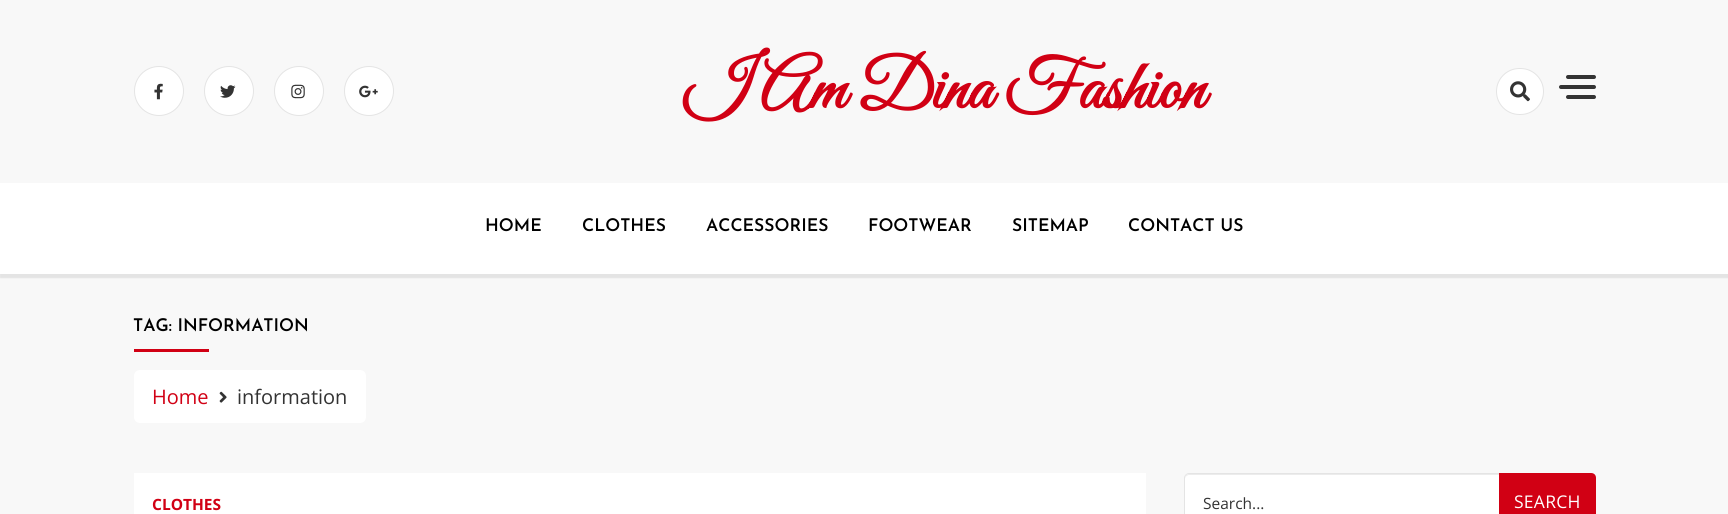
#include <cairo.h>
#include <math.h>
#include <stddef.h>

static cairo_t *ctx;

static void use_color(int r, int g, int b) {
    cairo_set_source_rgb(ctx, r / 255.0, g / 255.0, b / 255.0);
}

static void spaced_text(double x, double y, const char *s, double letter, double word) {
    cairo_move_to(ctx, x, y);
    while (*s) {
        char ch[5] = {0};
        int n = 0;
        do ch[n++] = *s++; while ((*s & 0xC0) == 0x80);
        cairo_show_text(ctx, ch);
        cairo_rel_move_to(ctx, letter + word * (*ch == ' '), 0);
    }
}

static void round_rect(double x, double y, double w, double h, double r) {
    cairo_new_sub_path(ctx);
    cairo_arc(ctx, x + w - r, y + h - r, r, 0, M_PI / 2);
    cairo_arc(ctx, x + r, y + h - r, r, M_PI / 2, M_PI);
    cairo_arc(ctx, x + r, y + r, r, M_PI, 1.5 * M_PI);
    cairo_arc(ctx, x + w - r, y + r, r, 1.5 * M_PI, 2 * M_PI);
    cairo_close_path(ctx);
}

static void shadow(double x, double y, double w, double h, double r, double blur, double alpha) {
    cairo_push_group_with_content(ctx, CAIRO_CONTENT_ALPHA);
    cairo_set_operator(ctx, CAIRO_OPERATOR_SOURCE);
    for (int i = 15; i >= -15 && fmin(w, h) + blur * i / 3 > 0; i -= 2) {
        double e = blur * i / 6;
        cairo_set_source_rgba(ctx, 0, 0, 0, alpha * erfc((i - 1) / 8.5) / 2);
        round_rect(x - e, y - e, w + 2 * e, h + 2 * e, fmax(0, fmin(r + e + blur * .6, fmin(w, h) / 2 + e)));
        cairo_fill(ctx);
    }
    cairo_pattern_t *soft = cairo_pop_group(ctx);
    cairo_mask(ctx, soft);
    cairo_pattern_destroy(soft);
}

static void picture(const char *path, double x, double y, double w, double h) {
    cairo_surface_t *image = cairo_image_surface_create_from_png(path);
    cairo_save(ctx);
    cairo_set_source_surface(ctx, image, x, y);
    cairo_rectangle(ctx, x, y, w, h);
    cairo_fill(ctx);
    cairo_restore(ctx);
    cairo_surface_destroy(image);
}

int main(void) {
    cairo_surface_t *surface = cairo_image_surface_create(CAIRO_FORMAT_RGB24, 1728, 514);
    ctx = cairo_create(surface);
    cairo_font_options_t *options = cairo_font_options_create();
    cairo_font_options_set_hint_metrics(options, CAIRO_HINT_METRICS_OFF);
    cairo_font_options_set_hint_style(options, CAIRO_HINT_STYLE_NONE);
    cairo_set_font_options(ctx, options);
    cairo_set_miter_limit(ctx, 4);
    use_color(248, 248, 248);
    cairo_paint(ctx);
    use_color(255, 255, 255);
    cairo_arc(ctx, 159, 91, 24.5, 0, 2 * M_PI);
    cairo_fill_preserve(ctx);
    use_color(228, 228, 228);
    cairo_set_line_width(ctx, 1);
    cairo_stroke(ctx);
    picture("img1.png", 154, 83, 9, 17);
    use_color(255, 255, 255);
    cairo_arc(ctx, 229, 91, 24.5, 0, 2 * M_PI);
    cairo_fill_preserve(ctx);
    use_color(228, 228, 228);
    cairo_stroke(ctx);
    picture("img2.png", 220, 85, 16, 13);
    use_color(255, 255, 255);
    cairo_arc(ctx, 299, 91, 24.5, 0, 2 * M_PI);
    cairo_fill_preserve(ctx);
    use_color(228, 228, 228);
    cairo_stroke(ctx);
    picture("img3.png", 291, 84, 14, 15);
    use_color(255, 255, 255);
    cairo_arc(ctx, 369, 91, 24.5, 0, 2 * M_PI);
    cairo_fill_preserve(ctx);
    use_color(228, 228, 228);
    cairo_stroke(ctx);
    picture("img4.png", 359, 85, 19, 13);
    cairo_select_font_face(ctx, "Great Vibes", CAIRO_FONT_SLANT_NORMAL, CAIRO_FONT_WEIGHT_BOLD);
    cairo_set_font_size(ctx, 70);
    use_color(209, 0, 20);
    cairo_move_to(ctx, 684, 108);
    cairo_show_text(ctx, "I Am Dina Fashion");
    use_color(255, 255, 255);
    round_rect(1496.5, 68.5, 47, 46, 23);
    cairo_fill_preserve(ctx);
    use_color(228, 228, 228);
    cairo_stroke(ctx);
    picture("img5.png", 1510, 81, 20, 21);
    use_color(51, 51, 51);
    round_rect(1559, 85, 37, 4, 2);
    cairo_fill(ctx);
    round_rect(1566, 75, 30, 4, 2);
    cairo_fill(ctx);
    round_rect(1566, 95, 30, 4, 2);
    cairo_fill(ctx);
    use_color(228, 228, 228);
    shadow(0, 186, 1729, 92, 0, 0.5, 1);
    use_color(255, 255, 255);
    cairo_rectangle(ctx, 0, 183, 1728, 91);
    cairo_fill(ctx);
    cairo_select_font_face(ctx, "Josefin Sans SemiBold", CAIRO_FONT_SLANT_NORMAL, CAIRO_FONT_WEIGHT_NORMAL);
    cairo_set_font_size(ctx, 17.5);
    use_color(0, 0, 0);
    cairo_move_to(ctx, 485, 231);
    cairo_show_text(ctx, "HOME");
    cairo_move_to(ctx, 582, 231);
    cairo_show_text(ctx, "CLOTHES");
    cairo_move_to(ctx, 706, 231);
    cairo_show_text(ctx, "ACCESSORIES");
    cairo_move_to(ctx, 868, 231);
    cairo_show_text(ctx, "FOOTWEAR");
    cairo_move_to(ctx, 1012, 231);
    cairo_show_text(ctx, "SITEMAP");
    cairo_move_to(ctx, 1128, 231);
    cairo_show_text(ctx, "CONTACT US");
    cairo_move_to(ctx, 133, 331);
    cairo_show_text(ctx, "TAG: INFORMATION");
    use_color(209, 0, 20);
    cairo_rectangle(ctx, 134, 349, 75, 3);
    cairo_fill(ctx);
    use_color(255, 255, 255);
    round_rect(134, 370, 232, 53, 6);
    cairo_fill(ctx);
    cairo_select_font_face(ctx, "Open Sans", CAIRO_FONT_SLANT_NORMAL, CAIRO_FONT_WEIGHT_NORMAL);
    cairo_set_font_size(ctx, 20);
    use_color(209, 0, 20);
    cairo_move_to(ctx, 152, 404);
    cairo_show_text(ctx, "Home");
    picture("img6.png", 219, 391, 8, 12);
    use_color(51, 51, 51);
    cairo_move_to(ctx, 237, 404);
    cairo_show_text(ctx, "information");
    use_color(255, 255, 255);
    cairo_rectangle(ctx, 134, 473, 1012, 41);
    cairo_fill(ctx);
    cairo_select_font_face(ctx, "Open Sans", CAIRO_FONT_SLANT_NORMAL, CAIRO_FONT_WEIGHT_BOLD);
    cairo_set_font_size(ctx, 15.5);
    use_color(209, 0, 20);
    cairo_move_to(ctx, 152, 510);
    cairo_show_text(ctx, "CLOTHES");
    use_color(255, 255, 255);
    round_rect(1184, 473, 412, 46, 5);
    cairo_fill(ctx);
    use_color(236, 236, 236);
    cairo_new_path(ctx);
    cairo_move_to(ctx, 1189, 475);
    cairo_line_to(ctx, 1591, 475);
    cairo_curve_to(ctx, 1593, 475, 1595, 477, 1595, 479);
    cairo_line_to(ctx, 1595, 478);
    cairo_curve_to(ctx, 1595, 476, 1593, 474, 1591, 474);
    cairo_line_to(ctx, 1189, 474);
    cairo_curve_to(ctx, 1187, 474, 1185, 476, 1185, 478);
    cairo_line_to(ctx, 1185, 479);
    cairo_curve_to(ctx, 1185, 477, 1187, 475, 1189, 475);
    cairo_close_path(ctx);
    cairo_fill(ctx);
    round_rect(1184.5, 473.5, 411, 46, 4.5);
    use_color(228, 228, 228);
    cairo_stroke(ctx);
    cairo_select_font_face(ctx, "Open Sans", CAIRO_FONT_SLANT_NORMAL, CAIRO_FONT_WEIGHT_NORMAL);
    use_color(51, 51, 51);
    cairo_move_to(ctx, 1203, 509);
    cairo_show_text(ctx, "Search...");
    use_color(209, 0, 20);
    cairo_new_path(ctx);
    cairo_move_to(ctx, 1499, 473);
    cairo_line_to(ctx, 1591, 473);
    cairo_curve_to(ctx, 1594, 473, 1596, 475, 1596, 478);
    cairo_line_to(ctx, 1596, 514);
    cairo_curve_to(ctx, 1596, 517, 1594, 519, 1591, 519);
    cairo_line_to(ctx, 1499, 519);
    cairo_close_path(ctx);
    cairo_fill(ctx);
    cairo_set_font_size(ctx, 17.5);
    use_color(255, 255, 255);
    spaced_text(1514, 508, "SEARCH", 0.25, 0);
    cairo_surface_write_to_png(surface, "result.png");
    cairo_font_options_destroy(options);
    cairo_destroy(ctx);
    cairo_surface_destroy(surface);
    return 0;
}
